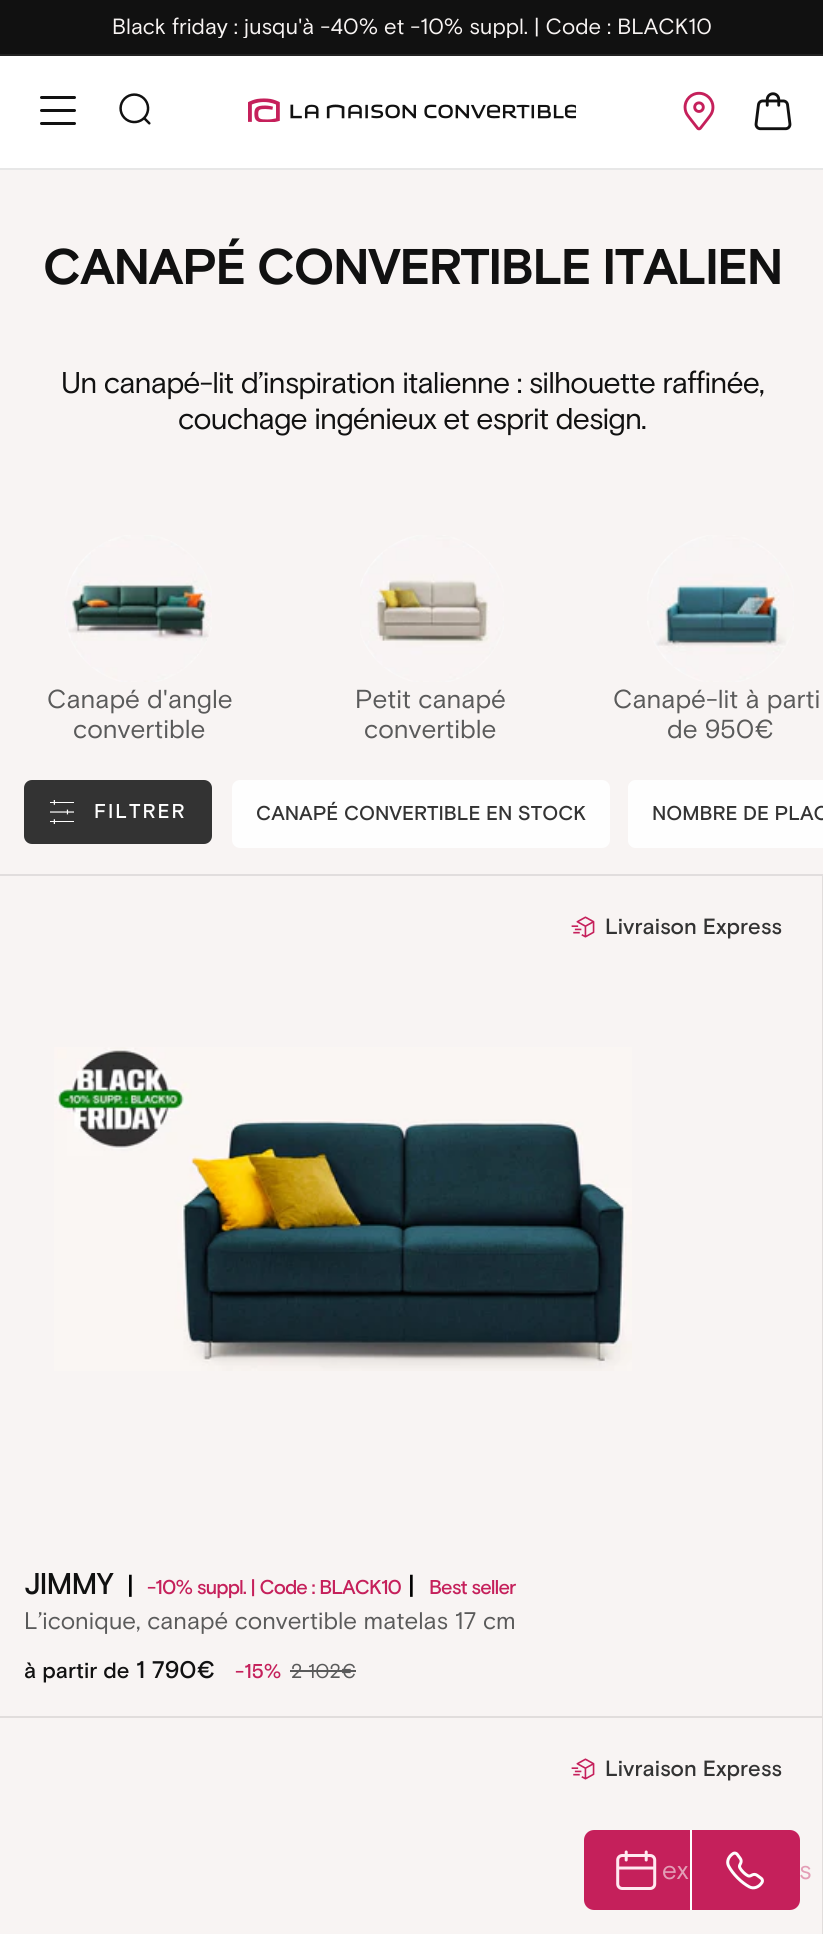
#include <cairo.h>
#include <math.h>
#include <stddef.h>

static cairo_t *ctx;

static void use_color(int r, int g, int b) {
    cairo_set_source_rgb(ctx, r / 255.0, g / 255.0, b / 255.0);
}

static void spaced_text(double x, double y, const char *s, double letter, double word) {
    cairo_move_to(ctx, x, y);
    while (*s) {
        char ch[5] = {0};
        int n = 0;
        do ch[n++] = *s++; while ((*s & 0xC0) == 0x80);
        cairo_show_text(ctx, ch);
        cairo_rel_move_to(ctx, letter + word * (*ch == ' '), 0);
    }
}

static void round_rect(double x, double y, double w, double h, double r) {
    cairo_new_sub_path(ctx);
    cairo_arc(ctx, x + w - r, y + h - r, r, 0, M_PI / 2);
    cairo_arc(ctx, x + r, y + h - r, r, M_PI / 2, M_PI);
    cairo_arc(ctx, x + r, y + r, r, M_PI, 1.5 * M_PI);
    cairo_arc(ctx, x + w - r, y + r, r, 1.5 * M_PI, 2 * M_PI);
    cairo_close_path(ctx);
}

static void picture(const char *path, double x, double y, double w, double h) {
    cairo_surface_t *image = cairo_image_surface_create_from_png(path);
    cairo_save(ctx);
    cairo_set_source_surface(ctx, image, x, y);
    cairo_rectangle(ctx, x, y, w, h);
    cairo_fill(ctx);
    cairo_restore(ctx);
    cairo_surface_destroy(image);
}

int main(void) {
    cairo_surface_t *surface = cairo_image_surface_create(CAIRO_FORMAT_RGB24, 823, 1934);
    ctx = cairo_create(surface);
    cairo_font_options_t *options = cairo_font_options_create();
    cairo_font_options_set_hint_metrics(options, CAIRO_HINT_METRICS_OFF);
    cairo_font_options_set_hint_style(options, CAIRO_HINT_STYLE_NONE);
    cairo_set_font_options(ctx, options);
    cairo_set_miter_limit(ctx, 4);
    use_color(248, 244, 243);
    cairo_paint(ctx);
    use_color(17, 17, 17);
    cairo_rectangle(ctx, 0, 0, 823, 54);
    cairo_fill(ctx);
    use_color(35, 35, 35);
    cairo_rectangle(ctx, 0, 54, 823, 2);
    cairo_fill(ctx);
    cairo_save(ctx);
    cairo_rectangle(ctx, 24, 16, 776, 22);
    cairo_clip(ctx);
    cairo_select_font_face(ctx, "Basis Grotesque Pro", CAIRO_FONT_SLANT_NORMAL, CAIRO_FONT_WEIGHT_NORMAL);
    cairo_set_font_size(ctx, 22);
    use_color(248, 244, 243);
    cairo_move_to(ctx, 112, 34);
    cairo_show_text(ctx, "Black friday : jusqu'à -40% et -10% suppl. | Code : BLACK10");
    cairo_restore(ctx);
    use_color(255, 255, 255);
    cairo_rectangle(ctx, 0, 56, 823, 112);
    cairo_fill(ctx);
    use_color(231, 231, 231);
    cairo_rectangle(ctx, 0, 168, 823, 2);
    cairo_fill(ctx);
    use_color(17, 17, 17);
    round_rect(40, 96, 36, 3, 1.5);
    cairo_fill(ctx);
    round_rect(40, 109, 36, 3, 1.5);
    cairo_fill(ctx);
    round_rect(40, 122, 36, 3, 1.5);
    cairo_fill(ctx);
    picture("img1.png", 119, 93, 32, 32);
    picture("img2.png", 248, 98, 328, 24);
    picture("img3.png", 683, 91, 32, 40);
    picture("img4.png", 754, 92, 38, 39);
    cairo_select_font_face(ctx, "Basis Grotesque Pro", CAIRO_FONT_SLANT_NORMAL, CAIRO_FONT_WEIGHT_BOLD);
    cairo_set_font_size(ctx, 50);
    spaced_text(43, 284, "CANAPÉ CONVERTIBLE ITALIEN", -1.5, 0);
    cairo_select_font_face(ctx, "Basis Grotesque Pro", CAIRO_FONT_SLANT_NORMAL, CAIRO_FONT_WEIGHT_NORMAL);
    cairo_set_font_size(ctx, 30);
    spaced_text(61, 393, "Un canapé-lit d’inspiration italienne : silhouette raffinée,", -0.9, 0);
    spaced_text(178, 429, "couchage ingénieux et esprit design.", -0.9, 0);
    picture("img5.png", 64, 535, 148, 147);
    cairo_set_font_size(ctx, 26);
    use_color(90, 90, 90);
    cairo_move_to(ctx, 47, 708);
    cairo_show_text(ctx, "Canapé d'angle");
    cairo_move_to(ctx, 73, 738);
    cairo_show_text(ctx, "convertible");
    picture("img6.png", 360, 535, 144, 147);
    cairo_move_to(ctx, 355, 708);
    cairo_show_text(ctx, "Petit canapé");
    cairo_move_to(ctx, 364, 738);
    cairo_show_text(ctx, "convertible");
    picture("img7.png", 647, 535, 147, 147);
    cairo_move_to(ctx, 613, 708);
    cairo_show_text(ctx, "Canapé-lit à parti");
    cairo_move_to(ctx, 667, 738);
    cairo_show_text(ctx, "de 950€");
    use_color(51, 51, 51);
    round_rect(25, 781, 186, 62, 7);
    cairo_fill_preserve(ctx);
    cairo_stroke(ctx);
    picture("img8.png", 50, 800, 24, 24);
    cairo_select_font_face(ctx, "Basis Grotesque Pro Medium", CAIRO_FONT_SLANT_NORMAL, CAIRO_FONT_WEIGHT_NORMAL);
    cairo_set_font_size(ctx, 20);
    use_color(254, 254, 254);
    spaced_text(94, 818, "FILTRER", 2, 0);
    round_rect(233, 781, 376, 66, 7);
    cairo_fill_preserve(ctx);
    cairo_stroke(ctx);
    use_color(51, 51, 51);
    cairo_move_to(ctx, 256, 820);
    cairo_show_text(ctx, "CANAPÉ CONVERTIBLE EN STOCK");
    use_color(254, 254, 254);
    cairo_new_path(ctx);
    cairo_move_to(ctx, 636, 780);
    cairo_line_to(ctx, 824, 780);
    cairo_line_to(ctx, 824, 848);
    cairo_line_to(ctx, 636, 848);
    cairo_curve_to(ctx, 631.5, 848, 628, 844.5, 628, 840);
    cairo_line_to(ctx, 628, 788);
    cairo_curve_to(ctx, 628, 783.5, 631.5, 780, 636, 780);
    cairo_close_path(ctx);
    cairo_fill(ctx);
    round_rect(629, 781, 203, 66, 7);
    cairo_stroke(ctx);
    use_color(51, 51, 51);
    cairo_move_to(ctx, 652, 820);
    cairo_show_text(ctx, "NOMBRE DE PLAC");
    use_color(225, 221, 221);
    cairo_rectangle(ctx, 0, 874, 823, 2);
    cairo_fill(ctx);
    use_color(225, 221, 220);
    cairo_new_path(ctx);
    cairo_move_to(ctx, 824, 876);
    cairo_line_to(ctx, 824, 1718);
    cairo_line_to(ctx, 822, 1716);
    cairo_line_to(ctx, 822, 876);
    cairo_close_path(ctx);
    cairo_fill(ctx);
    cairo_set_source_rgba(ctx, 0.067, 0.067, 0.067, 0.1);
    cairo_new_path(ctx);
    cairo_move_to(ctx, 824, 1718);
    cairo_line_to(ctx, 0, 1718);
    cairo_line_to(ctx, 0, 1716);
    cairo_line_to(ctx, 822, 1716);
    cairo_close_path(ctx);
    cairo_fill(ctx);
    picture("img9.png", 571, 916, 24, 22);
    cairo_set_font_size(ctx, 22);
    use_color(51, 51, 51);
    cairo_move_to(ctx, 605, 934);
    cairo_show_text(ctx, "Livraison Express");
    picture("img10.png", 54, 1047, 578, 324);
    cairo_set_font_size(ctx, 30);
    use_color(17, 17, 17);
    spaced_text(24, 1594, "JIMMY", -0.9, 0);
    cairo_set_font_size(ctx, 26);
    use_color(0, 0, 0);
    spaced_text(127, 1594, "|", -0.9, 0);
    cairo_set_font_size(ctx, 20);
    use_color(197, 32, 91);
    spaced_text(147, 1594, "-10% suppl. | Code : BLACK10", -0.9, 0);
    cairo_set_font_size(ctx, 26);
    use_color(0, 0, 0);
    spaced_text(408, 1594, "|", -0.9, 0);
    cairo_set_font_size(ctx, 20);
    use_color(197, 32, 91);
    spaced_text(429, 1594, "Best seller", -0.9, 0);
    cairo_select_font_face(ctx, "Basis Grotesque Pro", CAIRO_FONT_SLANT_NORMAL, CAIRO_FONT_WEIGHT_NORMAL);
    cairo_set_font_size(ctx, 24);
    use_color(90, 90, 90);
    cairo_move_to(ctx, 24, 1629);
    cairo_show_text(ctx, "L’iconique, canapé convertible matelas 17 cm");
    cairo_select_font_face(ctx, "Basis Grotesque Pro Medium", CAIRO_FONT_SLANT_NORMAL, CAIRO_FONT_WEIGHT_NORMAL);
    cairo_set_font_size(ctx, 22);
    use_color(17, 17, 17);
    cairo_move_to(ctx, 24, 1678);
    cairo_show_text(ctx, "à partir de");
    cairo_set_font_size(ctx, 24);
    cairo_move_to(ctx, 136, 1678);
    cairo_show_text(ctx, "1 790€");
    cairo_set_font_size(ctx, 20);
    use_color(197, 32, 91);
    cairo_move_to(ctx, 235, 1678);
    cairo_show_text(ctx, "-15%");
    cairo_select_font_face(ctx, "Basis Grotesque Pro", CAIRO_FONT_SLANT_NORMAL, CAIRO_FONT_WEIGHT_NORMAL);
    use_color(90, 90, 90);
    cairo_move_to(ctx, 291, 1678);
    cairo_show_text(ctx, "2 102€");
    cairo_rectangle(ctx, 290, 1670, 66, 2);
    cairo_fill(ctx);
    use_color(225, 221, 220);
    cairo_new_path(ctx);
    cairo_move_to(ctx, 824, 1718);
    cairo_line_to(ctx, 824, 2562);
    cairo_line_to(ctx, 822, 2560);
    cairo_line_to(ctx, 822, 1718);
    cairo_close_path(ctx);
    cairo_fill(ctx);
    picture("img9.png", 571, 1758, 24, 22);
    cairo_select_font_face(ctx, "Basis Grotesque Pro Medium", CAIRO_FONT_SLANT_NORMAL, CAIRO_FONT_WEIGHT_NORMAL);
    cairo_set_font_size(ctx, 22);
    use_color(51, 51, 51);
    cairo_move_to(ctx, 605, 1776);
    cairo_show_text(ctx, "Livraison Express");
    use_color(197, 32, 91);
    cairo_new_path(ctx);
    cairo_move_to(ctx, 692, 1830);
    cairo_line_to(ctx, 790, 1830);
    cairo_curve_to(ctx, 795.5, 1830, 800, 1834.5, 800, 1840);
    cairo_line_to(ctx, 800, 1900);
    cairo_curve_to(ctx, 800, 1905.5, 795.5, 1910, 790, 1910);
    cairo_line_to(ctx, 692, 1910);
    cairo_close_path(ctx);
    cairo_fill(ctx);
    picture("img11.png", 726, 1851, 38, 39);
    cairo_new_path(ctx);
    cairo_move_to(ctx, 594, 1830);
    cairo_line_to(ctx, 692, 1830);
    cairo_line_to(ctx, 692, 1910);
    cairo_line_to(ctx, 594, 1910);
    cairo_curve_to(ctx, 588.5, 1910, 584, 1905.5, 584, 1900);
    cairo_line_to(ctx, 584, 1840);
    cairo_curve_to(ctx, 584, 1834.5, 588.5, 1830, 594, 1830);
    cairo_close_path(ctx);
    cairo_fill(ctx);
    use_color(254, 254, 254);
    cairo_rectangle(ctx, 690, 1830, 2, 80);
    cairo_fill(ctx);
    picture("img12.png", 616, 1850, 41, 40);
    cairo_select_font_face(ctx, "Basis Grotesque Pro", CAIRO_FONT_SLANT_NORMAL, CAIRO_FONT_WEIGHT_NORMAL);
    cairo_set_font_size(ctx, 26);
    use_color(227, 158, 182);
    cairo_move_to(ctx, 662, 1879);
    cairo_show_text(ctx, "ex");
    cairo_move_to(ctx, 799, 1879);
    cairo_show_text(ctx, "s");
    cairo_surface_write_to_png(surface, "result.png");
    cairo_font_options_destroy(options);
    cairo_destroy(ctx);
    cairo_surface_destroy(surface);
    return 0;
}
